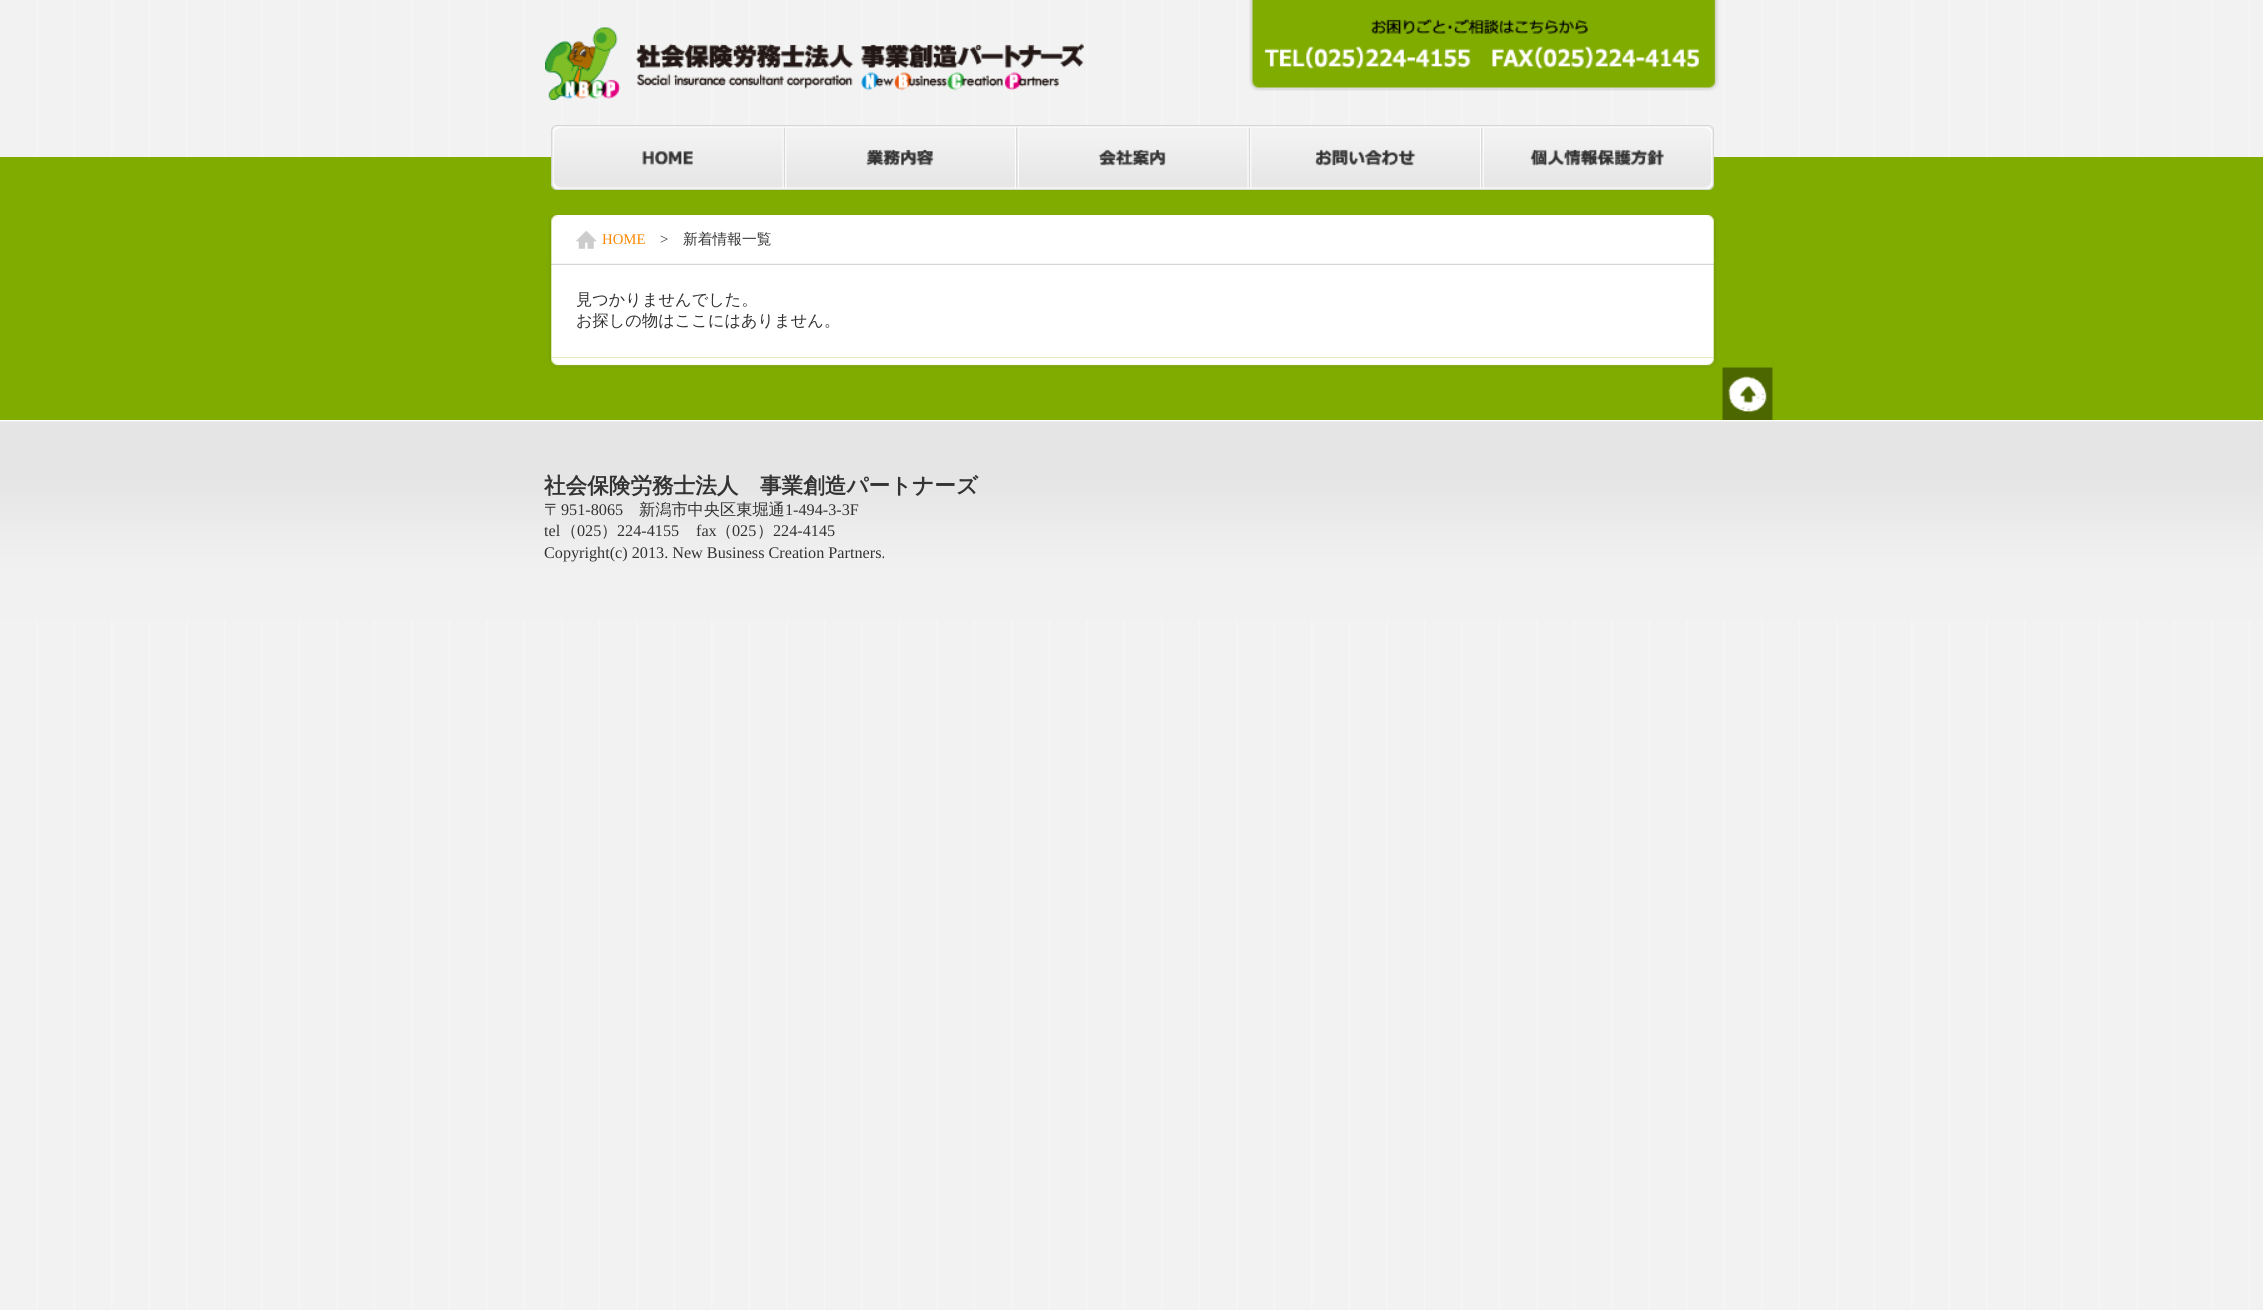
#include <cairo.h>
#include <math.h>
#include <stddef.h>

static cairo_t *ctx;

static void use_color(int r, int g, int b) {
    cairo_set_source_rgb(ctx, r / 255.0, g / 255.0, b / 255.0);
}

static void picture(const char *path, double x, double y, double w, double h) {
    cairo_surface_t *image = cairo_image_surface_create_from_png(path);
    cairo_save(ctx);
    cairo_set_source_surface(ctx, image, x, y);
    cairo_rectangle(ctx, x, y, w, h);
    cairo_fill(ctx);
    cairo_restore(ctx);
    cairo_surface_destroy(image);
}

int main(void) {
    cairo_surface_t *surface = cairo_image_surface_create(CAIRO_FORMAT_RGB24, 2263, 1310);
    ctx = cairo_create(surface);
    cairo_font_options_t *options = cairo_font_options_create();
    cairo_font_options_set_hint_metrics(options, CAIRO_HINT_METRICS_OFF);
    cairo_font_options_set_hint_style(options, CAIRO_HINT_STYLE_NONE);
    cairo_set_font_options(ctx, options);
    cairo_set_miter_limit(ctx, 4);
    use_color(255, 255, 255);
    cairo_paint(ctx);
    picture("img1.png", 0, 0, 2263, 1310);
    use_color(128, 172, 0);
    cairo_rectangle(ctx, 0, 157, 2263, 263);
    cairo_fill(ctx);
    picture("img2.png", 545, 27, 539, 73);
    picture("img3.png", 1249, 0, 470, 91);
    picture("img4.png", 551, 125, 1163, 65);
    picture("img5.png", 551, 125, 233, 65);
    picture("img6.png", 783, 127, 234, 61);
    picture("img7.png", 1016, 127, 233, 61);
    picture("img8.png", 1248, 127, 234, 61);
    picture("img9.png", 1481, 125, 233, 65);
    picture("img10.png", 548, 215, 1169, 50);
    cairo_select_font_face(ctx, "Liberation Serif", CAIRO_FONT_SLANT_NORMAL, CAIRO_FONT_WEIGHT_NORMAL);
    cairo_set_font_size(ctx, 14.75);
    use_color(253, 135, 0);
    cairo_move_to(ctx, 602, 244);
    cairo_show_text(ctx, "HOME");
    use_color(51, 51, 51);
    cairo_move_to(ctx, 660, 244);
    cairo_show_text(ctx, ">");
    cairo_select_font_face(ctx, "WenQuanYi Zen Hei Medium", CAIRO_FONT_SLANT_NORMAL, CAIRO_FONT_WEIGHT_NORMAL);
    cairo_move_to(ctx, 683, 244);
    cairo_show_text(ctx, "新着情報一覧");
    picture("img11.png", 548, 265, 1169, 93);
    cairo_set_font_size(ctx, 16.2);
    cairo_move_to(ctx, 576, 305);
    cairo_show_text(ctx, "見つかりませんでした。");
    cairo_move_to(ctx, 576, 326);
    cairo_show_text(ctx, "お探しの物はここにはありません。");
    picture("img12.png", 548, 357, 1169, 11);
    picture("img13.png", 0, 420, 2263, 200);
    picture("img14.png", 1722, 367, 51, 53);
    cairo_select_font_face(ctx, "WenQuanYi Zen Hei", CAIRO_FONT_SLANT_NORMAL, CAIRO_FONT_WEIGHT_BOLD);
    cairo_set_font_size(ctx, 21.6);
    cairo_move_to(ctx, 544, 493);
    cairo_show_text(ctx, "社会保険労務士法人　事業創造パートナーズ");
    cairo_select_font_face(ctx, "WenQuanYi Zen Hei Medium", CAIRO_FONT_SLANT_NORMAL, CAIRO_FONT_WEIGHT_NORMAL);
    cairo_set_font_size(ctx, 16.2);
    cairo_move_to(ctx, 544, 515);
    cairo_show_text(ctx, "〒");
    cairo_select_font_face(ctx, "Liberation Serif", CAIRO_FONT_SLANT_NORMAL, CAIRO_FONT_WEIGHT_NORMAL);
    cairo_move_to(ctx, 561, 515);
    cairo_show_text(ctx, "951-8065");
    cairo_select_font_face(ctx, "WenQuanYi Zen Hei Medium", CAIRO_FONT_SLANT_NORMAL, CAIRO_FONT_WEIGHT_NORMAL);
    cairo_move_to(ctx, 639, 515);
    cairo_show_text(ctx, "新潟市中央区東堀通");
    cairo_select_font_face(ctx, "Liberation Serif", CAIRO_FONT_SLANT_NORMAL, CAIRO_FONT_WEIGHT_NORMAL);
    cairo_move_to(ctx, 785, 515);
    cairo_show_text(ctx, "1-494-3-3F");
    cairo_move_to(ctx, 544, 536);
    cairo_show_text(ctx, "tel");
    cairo_select_font_face(ctx, "WenQuanYi Zen Hei Medium", CAIRO_FONT_SLANT_NORMAL, CAIRO_FONT_WEIGHT_NORMAL);
    cairo_move_to(ctx, 561, 536);
    cairo_show_text(ctx, "（");
    cairo_select_font_face(ctx, "Liberation Serif", CAIRO_FONT_SLANT_NORMAL, CAIRO_FONT_WEIGHT_NORMAL);
    cairo_move_to(ctx, 577, 536);
    cairo_show_text(ctx, "025");
    cairo_select_font_face(ctx, "WenQuanYi Zen Hei Medium", CAIRO_FONT_SLANT_NORMAL, CAIRO_FONT_WEIGHT_NORMAL);
    cairo_move_to(ctx, 601, 536);
    cairo_show_text(ctx, "）");
    cairo_select_font_face(ctx, "Liberation Serif", CAIRO_FONT_SLANT_NORMAL, CAIRO_FONT_WEIGHT_NORMAL);
    cairo_move_to(ctx, 617, 536);
    cairo_show_text(ctx, "224-4155");
    cairo_move_to(ctx, 696, 536);
    cairo_show_text(ctx, "fax");
    cairo_select_font_face(ctx, "WenQuanYi Zen Hei Medium", CAIRO_FONT_SLANT_NORMAL, CAIRO_FONT_WEIGHT_NORMAL);
    cairo_move_to(ctx, 716, 536);
    cairo_show_text(ctx, "（");
    cairo_select_font_face(ctx, "Liberation Serif", CAIRO_FONT_SLANT_NORMAL, CAIRO_FONT_WEIGHT_NORMAL);
    cairo_move_to(ctx, 732, 536);
    cairo_show_text(ctx, "025");
    cairo_select_font_face(ctx, "WenQuanYi Zen Hei Medium", CAIRO_FONT_SLANT_NORMAL, CAIRO_FONT_WEIGHT_NORMAL);
    cairo_move_to(ctx, 757, 536);
    cairo_show_text(ctx, "）");
    cairo_select_font_face(ctx, "Liberation Serif", CAIRO_FONT_SLANT_NORMAL, CAIRO_FONT_WEIGHT_NORMAL);
    cairo_move_to(ctx, 773, 536);
    cairo_show_text(ctx, "224-4145");
    cairo_move_to(ctx, 544, 558);
    cairo_show_text(ctx, "Copyright(c) 2013. New Business Creation Partners.");
    cairo_surface_write_to_png(surface, "result.png");
    cairo_font_options_destroy(options);
    cairo_destroy(ctx);
    cairo_surface_destroy(surface);
    return 0;
}
